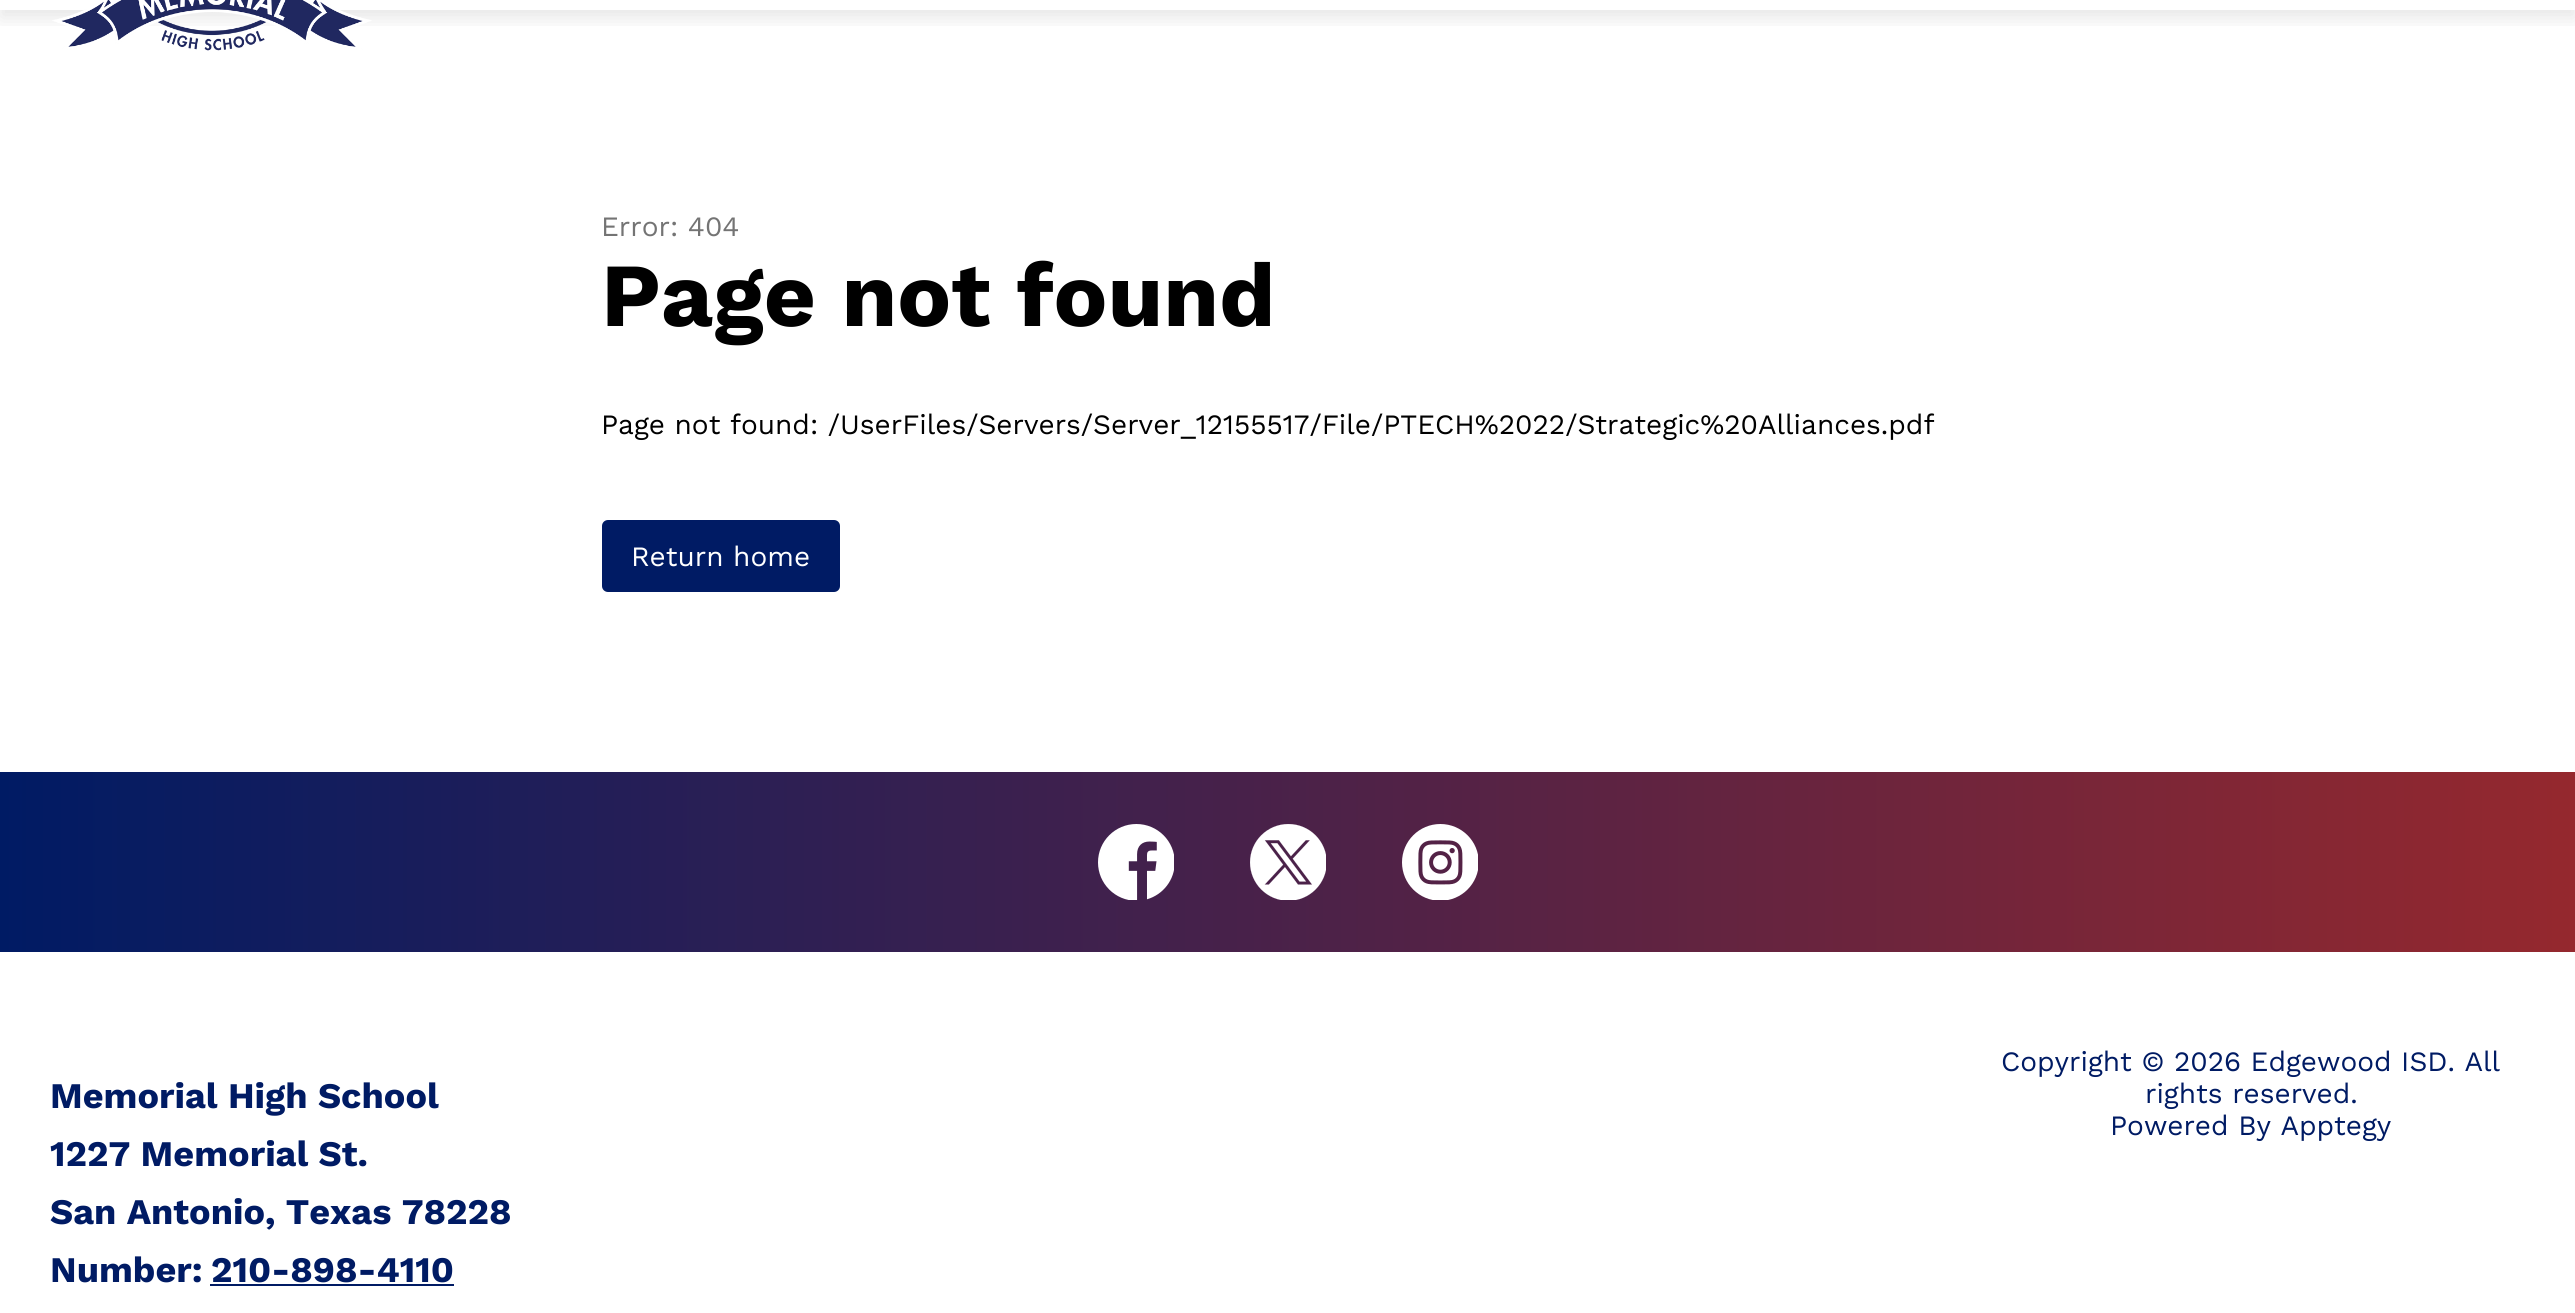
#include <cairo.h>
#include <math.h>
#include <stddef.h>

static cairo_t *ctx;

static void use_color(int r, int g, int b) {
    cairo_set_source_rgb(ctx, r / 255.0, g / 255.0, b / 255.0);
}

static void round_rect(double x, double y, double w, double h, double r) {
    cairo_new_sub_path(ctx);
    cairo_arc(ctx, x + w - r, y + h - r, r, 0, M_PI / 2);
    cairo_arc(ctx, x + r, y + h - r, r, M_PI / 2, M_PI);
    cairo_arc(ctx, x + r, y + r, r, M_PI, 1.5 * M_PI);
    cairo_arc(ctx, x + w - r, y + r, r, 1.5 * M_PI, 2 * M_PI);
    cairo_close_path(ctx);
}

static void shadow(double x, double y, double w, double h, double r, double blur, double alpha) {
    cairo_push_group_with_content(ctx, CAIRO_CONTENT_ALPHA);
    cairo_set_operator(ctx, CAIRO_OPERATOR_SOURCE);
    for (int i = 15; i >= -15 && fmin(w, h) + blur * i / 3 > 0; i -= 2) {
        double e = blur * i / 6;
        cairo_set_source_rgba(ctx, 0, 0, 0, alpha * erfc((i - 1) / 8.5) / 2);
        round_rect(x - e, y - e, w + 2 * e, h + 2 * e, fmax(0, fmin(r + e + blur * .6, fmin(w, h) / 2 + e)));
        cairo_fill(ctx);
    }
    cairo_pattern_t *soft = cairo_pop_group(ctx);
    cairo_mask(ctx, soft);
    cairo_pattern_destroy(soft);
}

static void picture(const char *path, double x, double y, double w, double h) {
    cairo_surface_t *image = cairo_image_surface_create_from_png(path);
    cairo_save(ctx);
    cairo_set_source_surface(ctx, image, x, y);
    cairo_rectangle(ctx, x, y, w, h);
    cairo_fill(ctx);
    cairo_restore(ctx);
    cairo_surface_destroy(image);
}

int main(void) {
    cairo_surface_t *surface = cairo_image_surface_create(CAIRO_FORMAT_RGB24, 2575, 1313);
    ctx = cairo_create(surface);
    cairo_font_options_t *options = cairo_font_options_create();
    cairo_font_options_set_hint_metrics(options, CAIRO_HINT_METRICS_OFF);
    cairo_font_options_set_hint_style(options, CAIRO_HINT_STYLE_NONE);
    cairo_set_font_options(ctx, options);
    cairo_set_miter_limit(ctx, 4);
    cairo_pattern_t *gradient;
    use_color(255, 255, 255);
    cairo_paint(ctx);
    cairo_save(ctx);
    cairo_rectangle(ctx, 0, 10, 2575, 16);
    cairo_clip(ctx);
    use_color(0, 0, 0);
    shadow(0, -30, 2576, 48, 0, 10, 0.1);
    cairo_restore(ctx);
    picture("img1.png", 52, 0, 320, 51);
    cairo_select_font_face(ctx, "Work Sans", CAIRO_FONT_SLANT_NORMAL, CAIRO_FONT_WEIGHT_NORMAL);
    cairo_set_font_size(ctx, 28);
    use_color(116, 116, 116);
    cairo_move_to(ctx, 601, 236);
    cairo_show_text(ctx, "Error: 404");
    cairo_select_font_face(ctx, "Work Sans", CAIRO_FONT_SLANT_NORMAL, CAIRO_FONT_WEIGHT_BOLD);
    cairo_set_font_size(ctx, 90);
    use_color(0, 0, 0);
    cairo_move_to(ctx, 601, 326);
    cairo_show_text(ctx, "Page not found");
    cairo_select_font_face(ctx, "Work Sans", CAIRO_FONT_SLANT_NORMAL, CAIRO_FONT_WEIGHT_NORMAL);
    cairo_set_font_size(ctx, 28);
    cairo_move_to(ctx, 601, 434);
    cairo_show_text(ctx, "Page not found: /UserFiles/Servers/Server_12155517/File/PTECH%2022/Strategic%20Alliances.pdf");
    use_color(0, 27, 100);
    round_rect(602, 520, 238, 72, 6);
    cairo_fill(ctx);
    use_color(255, 255, 255);
    cairo_move_to(ctx, 631, 566);
    cairo_show_text(ctx, "Return home");
    gradient = cairo_pattern_create_linear(0, 862, 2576, 862);
    cairo_pattern_add_color_stop_rgba(gradient, 0, 0, 0.106, 0.392, 1);
    cairo_pattern_add_color_stop_rgba(gradient, 1, 0.584, 0.157, 0.18, 1);
    cairo_set_source(ctx, gradient);
    cairo_pattern_destroy(gradient);
    cairo_rectangle(ctx, 0, 772, 2575, 180);
    cairo_fill(ctx);
    picture("img2.png", 1098, 824, 76, 76);
    picture("img3.png", 1250, 824, 76, 76);
    picture("img4.png", 1402, 824, 76, 76);
    cairo_select_font_face(ctx, "Work Sans", CAIRO_FONT_SLANT_NORMAL, CAIRO_FONT_WEIGHT_BOLD);
    cairo_set_font_size(ctx, 36);
    use_color(0, 27, 100);
    cairo_move_to(ctx, 50, 1108);
    cairo_show_text(ctx, "Memorial High School");
    cairo_move_to(ctx, 50, 1166);
    cairo_show_text(ctx, "1227 Memorial St.");
    cairo_move_to(ctx, 50, 1224);
    cairo_show_text(ctx, "San Antonio, Texas 78228");
    cairo_move_to(ctx, 50, 1282);
    cairo_show_text(ctx, "Number:");
    cairo_move_to(ctx, 211, 1282);
    cairo_show_text(ctx, "210-898-4110");
    cairo_rectangle(ctx, 210, 1284, 244, 2);
    cairo_fill(ctx);
    cairo_select_font_face(ctx, "Work Sans", CAIRO_FONT_SLANT_NORMAL, CAIRO_FONT_WEIGHT_NORMAL);
    cairo_set_font_size(ctx, 28);
    cairo_move_to(ctx, 2001, 1071);
    cairo_show_text(ctx, "Copyright © 2026 Edgewood ISD. All");
    cairo_move_to(ctx, 2145, 1103);
    cairo_show_text(ctx, "rights reserved.");
    cairo_move_to(ctx, 2110, 1135);
    cairo_show_text(ctx, "Powered By Apptegy");
    cairo_surface_write_to_png(surface, "result.png");
    cairo_font_options_destroy(options);
    cairo_destroy(ctx);
    cairo_surface_destroy(surface);
    return 0;
}
